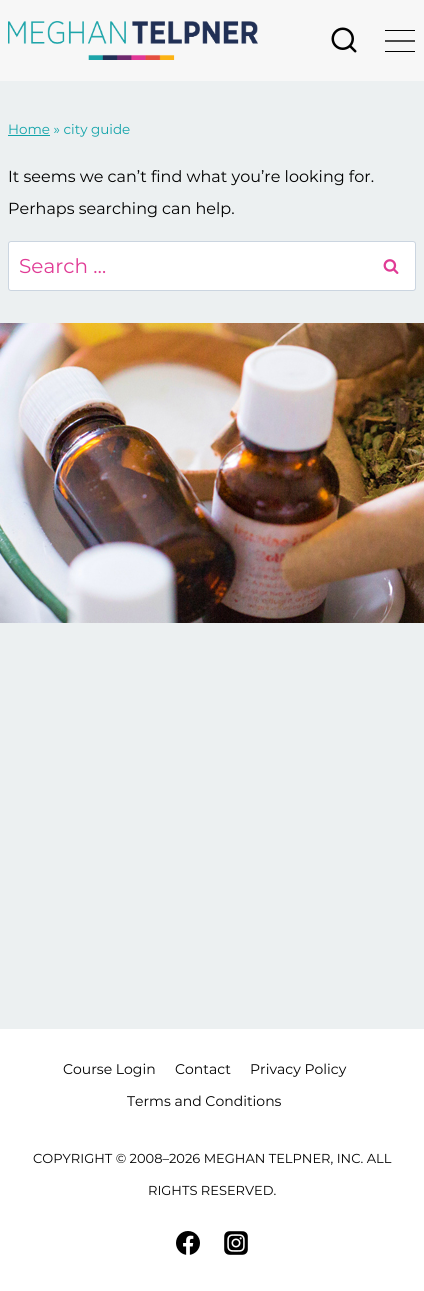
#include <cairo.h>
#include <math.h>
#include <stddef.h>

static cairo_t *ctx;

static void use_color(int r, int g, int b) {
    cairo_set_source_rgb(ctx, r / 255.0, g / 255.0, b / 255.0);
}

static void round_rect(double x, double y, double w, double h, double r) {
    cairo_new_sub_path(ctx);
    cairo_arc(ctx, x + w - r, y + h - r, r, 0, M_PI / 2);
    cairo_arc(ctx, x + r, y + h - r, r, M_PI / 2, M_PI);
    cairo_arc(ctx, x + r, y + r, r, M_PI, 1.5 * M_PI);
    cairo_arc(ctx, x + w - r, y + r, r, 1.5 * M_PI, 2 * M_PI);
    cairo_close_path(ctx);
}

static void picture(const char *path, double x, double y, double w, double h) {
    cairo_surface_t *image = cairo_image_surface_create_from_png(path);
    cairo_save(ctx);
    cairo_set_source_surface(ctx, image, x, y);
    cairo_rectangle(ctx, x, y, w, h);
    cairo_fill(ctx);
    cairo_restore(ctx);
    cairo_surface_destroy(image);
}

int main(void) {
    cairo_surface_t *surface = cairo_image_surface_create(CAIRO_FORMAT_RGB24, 424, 1291);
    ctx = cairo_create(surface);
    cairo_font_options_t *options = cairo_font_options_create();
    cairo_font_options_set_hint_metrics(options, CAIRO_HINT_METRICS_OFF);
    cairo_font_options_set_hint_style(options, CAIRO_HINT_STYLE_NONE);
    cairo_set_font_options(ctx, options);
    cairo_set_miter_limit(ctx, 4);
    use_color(236, 240, 241);
    cairo_paint(ctx);
    use_color(247, 247, 247);
    cairo_rectangle(ctx, 0, 0, 424, 81);
    cairo_fill(ctx);
    picture("img1.png", 8, 21, 250, 39);
    picture("img2.png", 331, 27, 26, 26);
    use_color(0, 0, 0);
    cairo_rectangle(ctx, 385, 30, 30, 1);
    cairo_fill(ctx);
    cairo_save(ctx);
    cairo_rectangle(ctx, 385, 30, 30, 22);
    cairo_clip(ctx);
    cairo_new_path(ctx);
    cairo_move_to(ctx, 384.5, 41);
    cairo_line_to(ctx, 415.5, 41);
    cairo_set_line_width(ctx, 1.4);
    cairo_stroke(ctx);
    cairo_restore(ctx);
    cairo_rectangle(ctx, 385, 51, 30, 1);
    cairo_fill(ctx);
    use_color(16, 163, 169);
    cairo_rectangle(ctx, 8, 135, 42, 1);
    cairo_fill(ctx);
    cairo_select_font_face(ctx, "Montserrat", CAIRO_FONT_SLANT_NORMAL, CAIRO_FONT_WEIGHT_NORMAL);
    cairo_set_font_size(ctx, 13.5);
    cairo_move_to(ctx, 8, 134);
    cairo_show_text(ctx, "Home » city guide");
    cairo_set_font_size(ctx, 16);
    use_color(0, 0, 0);
    cairo_move_to(ctx, 8, 182);
    cairo_show_text(ctx, "It seems we can’t find what you’re looking for.");
    cairo_move_to(ctx, 8, 214);
    cairo_show_text(ctx, "Perhaps searching can help.");
    use_color(255, 255, 255);
    round_rect(8.5, 241.5, 407, 49, 2.5);
    cairo_fill_preserve(ctx);
    use_color(203, 213, 224);
    cairo_set_line_width(ctx, 1);
    cairo_stroke(ctx);
    cairo_set_font_size(ctx, 20);
    use_color(224, 59, 149);
    cairo_move_to(ctx, 19, 273);
    cairo_show_text(ctx, "Search …");
    picture("img3.png", 383, 259, 16, 15);
    picture("img4.png", 0, 323, 424, 300);
    use_color(255, 255, 255);
    cairo_rectangle(ctx, 0, 1029, 424, 262);
    cairo_fill(ctx);
    cairo_set_font_size(ctx, 14);
    use_color(0, 0, 0);
    cairo_move_to(ctx, 63, 1074);
    cairo_show_text(ctx, "Course Login");
    cairo_move_to(ctx, 175, 1074);
    cairo_show_text(ctx, "Contact");
    cairo_move_to(ctx, 250, 1074);
    cairo_show_text(ctx, "Privacy Policy");
    cairo_move_to(ctx, 127, 1106);
    cairo_show_text(ctx, "Terms and Conditions");
    cairo_set_font_size(ctx, 13);
    cairo_move_to(ctx, 33, 1163);
    cairo_show_text(ctx, "COPYRIGHT © 2008–2026 MEGHAN TELPNER, INC. ALL");
    cairo_move_to(ctx, 148, 1195);
    cairo_show_text(ctx, "RIGHTS RESERVED.");
    picture("img5.png", 176, 1231, 24, 24);
    picture("img6.png", 224, 1231, 24, 24);
    cairo_surface_write_to_png(surface, "result.png");
    cairo_font_options_destroy(options);
    cairo_destroy(ctx);
    cairo_surface_destroy(surface);
    return 0;
}
